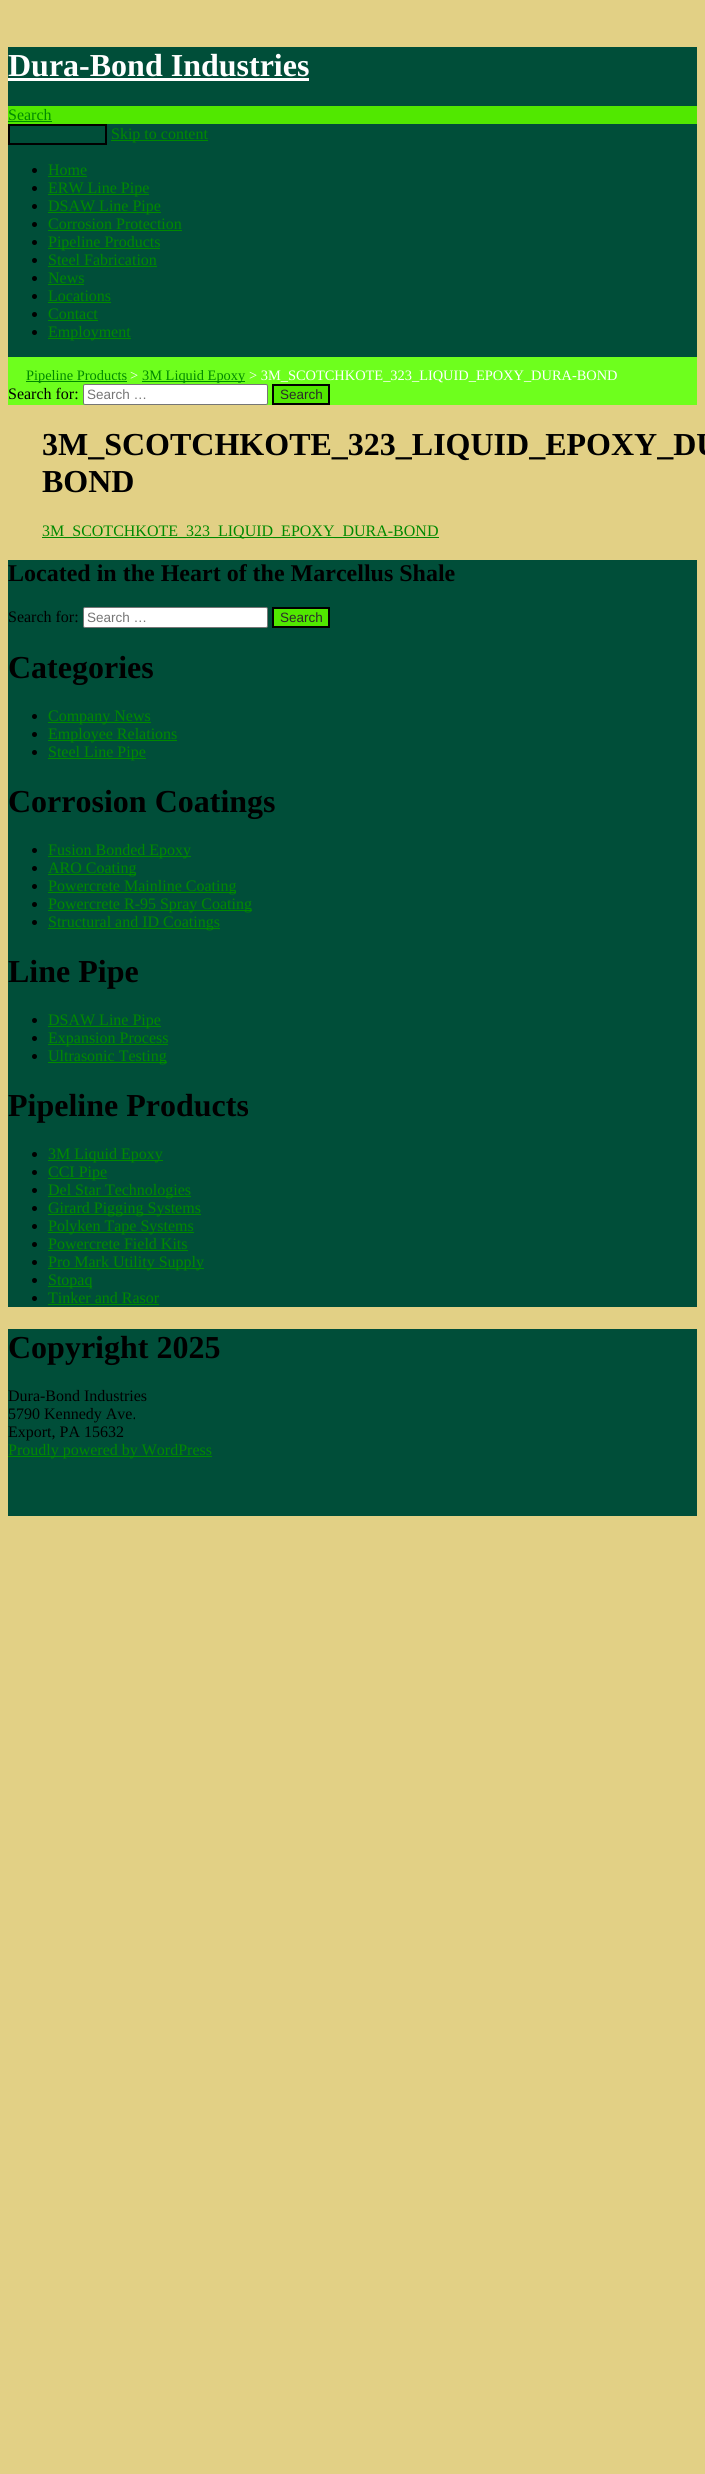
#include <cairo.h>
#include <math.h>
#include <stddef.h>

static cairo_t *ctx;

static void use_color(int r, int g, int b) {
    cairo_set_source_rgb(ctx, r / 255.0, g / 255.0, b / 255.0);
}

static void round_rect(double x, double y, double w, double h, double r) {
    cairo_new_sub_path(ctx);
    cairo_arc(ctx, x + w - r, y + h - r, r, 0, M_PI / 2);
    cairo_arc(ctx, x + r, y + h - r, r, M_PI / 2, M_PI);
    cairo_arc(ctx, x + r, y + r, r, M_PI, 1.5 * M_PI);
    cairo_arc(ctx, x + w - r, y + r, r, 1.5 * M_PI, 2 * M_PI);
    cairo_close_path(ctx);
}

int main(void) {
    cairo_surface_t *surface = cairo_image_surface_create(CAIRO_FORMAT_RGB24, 705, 2474);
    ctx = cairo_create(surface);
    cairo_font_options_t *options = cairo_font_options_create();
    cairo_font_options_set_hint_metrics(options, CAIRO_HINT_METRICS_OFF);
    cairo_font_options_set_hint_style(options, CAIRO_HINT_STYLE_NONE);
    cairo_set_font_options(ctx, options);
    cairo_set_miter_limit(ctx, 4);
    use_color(226, 208, 133);
    cairo_paint(ctx);
    use_color(0, 78, 57);
    cairo_rectangle(ctx, 8, 47, 689, 310);
    cairo_fill(ctx);
    cairo_select_font_face(ctx, "Liberation Serif", CAIRO_FONT_SLANT_NORMAL, CAIRO_FONT_WEIGHT_BOLD);
    cairo_set_font_size(ctx, 32);
    use_color(255, 255, 255);
    cairo_move_to(ctx, 8, 76);
    cairo_show_text(ctx, "Dura-Bond Industries");
    cairo_rectangle(ctx, 8, 78, 301, 3);
    cairo_fill(ctx);
    use_color(81, 232, 0);
    cairo_rectangle(ctx, 8, 106, 689, 18);
    cairo_fill(ctx);
    cairo_select_font_face(ctx, "Liberation Serif", CAIRO_FONT_SLANT_NORMAL, CAIRO_FONT_WEIGHT_NORMAL);
    cairo_set_font_size(ctx, 16);
    use_color(0, 137, 0);
    cairo_move_to(ctx, 8, 120);
    cairo_show_text(ctx, "Search");
    cairo_rectangle(ctx, 8, 121, 44, 1);
    cairo_fill(ctx);
    cairo_rectangle(ctx, 9, 125, 97, 19);
    use_color(0, 0, 0);
    cairo_stroke(ctx);
    use_color(0, 137, 0);
    cairo_rectangle(ctx, 111, 140, 97, 1);
    cairo_fill(ctx);
    cairo_move_to(ctx, 111, 139);
    cairo_show_text(ctx, "Skip to content");
    use_color(0, 0, 0);
    cairo_new_path(ctx);
    cairo_arc(ctx, 34.5, 170.5, 2.5, 0, 2 * M_PI);
    cairo_fill(ctx);
    use_color(0, 137, 0);
    cairo_move_to(ctx, 48, 175);
    cairo_show_text(ctx, "Home");
    cairo_rectangle(ctx, 48, 176, 39, 1);
    cairo_fill(ctx);
    use_color(0, 0, 0);
    cairo_arc(ctx, 34.5, 188.5, 2.5, 0, 2 * M_PI);
    cairo_fill(ctx);
    use_color(0, 137, 0);
    cairo_rectangle(ctx, 48, 194, 101, 1);
    cairo_fill(ctx);
    cairo_move_to(ctx, 48, 193);
    cairo_show_text(ctx, "ERW Line Pipe");
    use_color(0, 0, 0);
    cairo_new_path(ctx);
    cairo_arc(ctx, 34.5, 206.5, 2.5, 0, 2 * M_PI);
    cairo_fill(ctx);
    use_color(0, 137, 0);
    cairo_rectangle(ctx, 48, 212, 113, 1);
    cairo_fill(ctx);
    cairo_move_to(ctx, 48, 211);
    cairo_show_text(ctx, "DSAW Line Pipe");
    use_color(0, 0, 0);
    cairo_new_path(ctx);
    cairo_arc(ctx, 34.5, 224.5, 2.5, 0, 2 * M_PI);
    cairo_fill(ctx);
    use_color(0, 137, 0);
    cairo_move_to(ctx, 48, 229);
    cairo_show_text(ctx, "Corrosion Protection");
    cairo_rectangle(ctx, 48, 230, 134, 1);
    cairo_fill(ctx);
    use_color(0, 0, 0);
    cairo_arc(ctx, 34.5, 242.5, 2.5, 0, 2 * M_PI);
    cairo_fill(ctx);
    use_color(0, 137, 0);
    cairo_rectangle(ctx, 48, 248, 112, 1);
    cairo_fill(ctx);
    cairo_move_to(ctx, 48, 247);
    cairo_show_text(ctx, "Pipeline Products");
    use_color(0, 0, 0);
    cairo_new_path(ctx);
    cairo_arc(ctx, 34.5, 260.5, 2.5, 0, 2 * M_PI);
    cairo_fill(ctx);
    use_color(0, 137, 0);
    cairo_move_to(ctx, 48, 265);
    cairo_show_text(ctx, "Steel Fabrication");
    cairo_rectangle(ctx, 48, 266, 109, 1);
    cairo_fill(ctx);
    use_color(0, 0, 0);
    cairo_arc(ctx, 34.5, 278.5, 2.5, 0, 2 * M_PI);
    cairo_fill(ctx);
    use_color(0, 137, 0);
    cairo_move_to(ctx, 48, 283);
    cairo_show_text(ctx, "News");
    cairo_rectangle(ctx, 48, 284, 36, 1);
    cairo_fill(ctx);
    use_color(0, 0, 0);
    cairo_arc(ctx, 34.5, 296.5, 2.5, 0, 2 * M_PI);
    cairo_fill(ctx);
    use_color(0, 137, 0);
    cairo_move_to(ctx, 48, 301);
    cairo_show_text(ctx, "Locations");
    cairo_rectangle(ctx, 48, 302, 63, 1);
    cairo_fill(ctx);
    use_color(0, 0, 0);
    cairo_arc(ctx, 34.5, 314.5, 2.5, 0, 2 * M_PI);
    cairo_fill(ctx);
    use_color(0, 137, 0);
    cairo_move_to(ctx, 48, 319);
    cairo_show_text(ctx, "Contact");
    cairo_rectangle(ctx, 48, 320, 50, 1);
    cairo_fill(ctx);
    use_color(0, 0, 0);
    cairo_arc(ctx, 34.5, 332.5, 2.5, 0, 2 * M_PI);
    cairo_fill(ctx);
    use_color(0, 137, 0);
    cairo_rectangle(ctx, 48, 338, 83, 1);
    cairo_fill(ctx);
    cairo_move_to(ctx, 48, 337);
    cairo_show_text(ctx, "Employment");
    use_color(110, 255, 29);
    cairo_rectangle(ctx, 8, 357, 689, 48);
    cairo_fill(ctx);
    use_color(0, 137, 0);
    cairo_rectangle(ctx, 26, 381, 101, 1);
    cairo_fill(ctx);
    cairo_set_font_size(ctx, 14.4);
    cairo_move_to(ctx, 26, 380);
    cairo_show_text(ctx, "Pipeline Products");
    use_color(255, 255, 255);
    cairo_move_to(ctx, 130, 380);
    cairo_show_text(ctx, ">");
    use_color(0, 137, 0);
    cairo_rectangle(ctx, 142, 381, 103, 1);
    cairo_fill(ctx);
    cairo_move_to(ctx, 142, 380);
    cairo_show_text(ctx, "3M Liquid Epoxy");
    use_color(255, 255, 255);
    cairo_move_to(ctx, 249, 380);
    cairo_show_text(ctx, "> 3M_SCOTCHKOTE_323_LIQUID_EPOXY_DURA-BOND");
    cairo_set_font_size(ctx, 16);
    use_color(0, 0, 0);
    cairo_move_to(ctx, 8, 399);
    cairo_show_text(ctx, "Search for:");
    use_color(255, 255, 255);
    round_rect(83.5, 384.5, 184, 20, 1.5);
    cairo_fill_preserve(ctx);
    use_color(118, 118, 118);
    cairo_set_line_width(ctx, 1);
    cairo_stroke(ctx);
    cairo_select_font_face(ctx, "Liberation Sans", CAIRO_FONT_SLANT_NORMAL, CAIRO_FONT_WEIGHT_NORMAL);
    cairo_set_font_size(ctx, 13.5);
    use_color(117, 117, 117);
    cairo_move_to(ctx, 87, 399);
    cairo_show_text(ctx, "Search …");
    use_color(81, 232, 0);
    cairo_rectangle(ctx, 273, 385, 56, 19);
    cairo_fill_preserve(ctx);
    use_color(0, 0, 0);
    cairo_set_line_width(ctx, 2);
    cairo_stroke(ctx);
    use_color(43, 43, 43);
    cairo_move_to(ctx, 280, 399);
    cairo_show_text(ctx, "Search");
    cairo_select_font_face(ctx, "Liberation Serif", CAIRO_FONT_SLANT_NORMAL, CAIRO_FONT_WEIGHT_BOLD);
    cairo_set_font_size(ctx, 32);
    use_color(0, 0, 0);
    cairo_move_to(ctx, 42, 455);
    cairo_show_text(ctx, "3M_SCOTCHKOTE_323_LIQUID_EPOXY_DU");
    cairo_move_to(ctx, 42, 492);
    cairo_show_text(ctx, "BOND");
    use_color(0, 137, 0);
    cairo_rectangle(ctx, 42, 537, 397, 1);
    cairo_fill(ctx);
    cairo_select_font_face(ctx, "Liberation Serif", CAIRO_FONT_SLANT_NORMAL, CAIRO_FONT_WEIGHT_NORMAL);
    cairo_set_font_size(ctx, 16);
    cairo_move_to(ctx, 42, 536);
    cairo_show_text(ctx, "3M_SCOTCHKOTE_323_LIQUID_EPOXY_DURA-BOND");
    use_color(0, 78, 57);
    cairo_rectangle(ctx, 8, 560, 689, 747);
    cairo_fill(ctx);
    cairo_select_font_face(ctx, "Liberation Serif", CAIRO_FONT_SLANT_NORMAL, CAIRO_FONT_WEIGHT_BOLD);
    cairo_set_font_size(ctx, 24);
    use_color(0, 0, 0);
    cairo_move_to(ctx, 8, 581);
    cairo_show_text(ctx, "Located in the Heart of the Marcellus Shale");
    cairo_select_font_face(ctx, "Liberation Serif", CAIRO_FONT_SLANT_NORMAL, CAIRO_FONT_WEIGHT_NORMAL);
    cairo_set_font_size(ctx, 16);
    cairo_move_to(ctx, 8, 622);
    cairo_show_text(ctx, "Search for:");
    use_color(255, 255, 255);
    round_rect(83.5, 607.5, 184, 20, 1.5);
    cairo_fill_preserve(ctx);
    use_color(118, 118, 118);
    cairo_set_line_width(ctx, 1);
    cairo_stroke(ctx);
    cairo_select_font_face(ctx, "Liberation Sans", CAIRO_FONT_SLANT_NORMAL, CAIRO_FONT_WEIGHT_NORMAL);
    cairo_set_font_size(ctx, 13.5);
    use_color(117, 117, 117);
    cairo_move_to(ctx, 87, 622);
    cairo_show_text(ctx, "Search …");
    use_color(81, 232, 0);
    cairo_rectangle(ctx, 273, 608, 56, 19);
    cairo_fill_preserve(ctx);
    use_color(0, 0, 0);
    cairo_set_line_width(ctx, 2);
    cairo_stroke(ctx);
    use_color(43, 43, 43);
    cairo_move_to(ctx, 280, 622);
    cairo_show_text(ctx, "Search");
    cairo_select_font_face(ctx, "Liberation Serif", CAIRO_FONT_SLANT_NORMAL, CAIRO_FONT_WEIGHT_BOLD);
    cairo_set_font_size(ctx, 32);
    use_color(0, 0, 0);
    cairo_move_to(ctx, 8, 678);
    cairo_show_text(ctx, "Categories");
    cairo_new_path(ctx);
    cairo_arc(ctx, 34.5, 716.5, 2.5, 0, 2 * M_PI);
    cairo_fill(ctx);
    use_color(0, 137, 0);
    cairo_rectangle(ctx, 48, 722, 103, 1);
    cairo_fill(ctx);
    cairo_select_font_face(ctx, "Liberation Serif", CAIRO_FONT_SLANT_NORMAL, CAIRO_FONT_WEIGHT_NORMAL);
    cairo_set_font_size(ctx, 16);
    cairo_move_to(ctx, 48, 721);
    cairo_show_text(ctx, "Company News");
    use_color(0, 0, 0);
    cairo_new_path(ctx);
    cairo_arc(ctx, 34.5, 734.5, 2.5, 0, 2 * M_PI);
    cairo_fill(ctx);
    use_color(0, 137, 0);
    cairo_rectangle(ctx, 48, 740, 129, 1);
    cairo_fill(ctx);
    cairo_move_to(ctx, 48, 739);
    cairo_show_text(ctx, "Employee Relations");
    use_color(0, 0, 0);
    cairo_new_path(ctx);
    cairo_arc(ctx, 34.5, 752.5, 2.5, 0, 2 * M_PI);
    cairo_fill(ctx);
    use_color(0, 137, 0);
    cairo_rectangle(ctx, 48, 758, 98, 1);
    cairo_fill(ctx);
    cairo_move_to(ctx, 48, 757);
    cairo_show_text(ctx, "Steel Line Pipe");
    cairo_select_font_face(ctx, "Liberation Serif", CAIRO_FONT_SLANT_NORMAL, CAIRO_FONT_WEIGHT_BOLD);
    cairo_set_font_size(ctx, 32);
    use_color(0, 0, 0);
    cairo_move_to(ctx, 8, 812);
    cairo_show_text(ctx, "Corrosion Coatings");
    cairo_new_path(ctx);
    cairo_arc(ctx, 34.5, 850.5, 2.5, 0, 2 * M_PI);
    cairo_fill(ctx);
    use_color(0, 137, 0);
    cairo_rectangle(ctx, 48, 856, 143, 1);
    cairo_fill(ctx);
    cairo_select_font_face(ctx, "Liberation Serif", CAIRO_FONT_SLANT_NORMAL, CAIRO_FONT_WEIGHT_NORMAL);
    cairo_set_font_size(ctx, 16);
    cairo_move_to(ctx, 48, 855);
    cairo_show_text(ctx, "Fusion Bonded Epoxy");
    use_color(0, 0, 0);
    cairo_new_path(ctx);
    cairo_arc(ctx, 34.5, 868.5, 2.5, 0, 2 * M_PI);
    cairo_fill(ctx);
    use_color(0, 137, 0);
    cairo_rectangle(ctx, 48, 874, 88, 1);
    cairo_fill(ctx);
    cairo_move_to(ctx, 48, 873);
    cairo_show_text(ctx, "ARO Coating");
    use_color(0, 0, 0);
    cairo_new_path(ctx);
    cairo_arc(ctx, 34.5, 886.5, 2.5, 0, 2 * M_PI);
    cairo_fill(ctx);
    use_color(0, 137, 0);
    cairo_rectangle(ctx, 48, 892, 188, 1);
    cairo_fill(ctx);
    cairo_move_to(ctx, 48, 891);
    cairo_show_text(ctx, "Powercrete Mainline Coating");
    use_color(0, 0, 0);
    cairo_new_path(ctx);
    cairo_arc(ctx, 34.5, 904.5, 2.5, 0, 2 * M_PI);
    cairo_fill(ctx);
    use_color(0, 137, 0);
    cairo_rectangle(ctx, 48, 910, 204, 1);
    cairo_fill(ctx);
    cairo_move_to(ctx, 48, 909);
    cairo_show_text(ctx, "Powercrete R-95 Spray Coating");
    use_color(0, 0, 0);
    cairo_new_path(ctx);
    cairo_arc(ctx, 34.5, 922.5, 2.5, 0, 2 * M_PI);
    cairo_fill(ctx);
    use_color(0, 137, 0);
    cairo_rectangle(ctx, 48, 928, 172, 1);
    cairo_fill(ctx);
    cairo_move_to(ctx, 48, 927);
    cairo_show_text(ctx, "Structural and ID Coatings");
    cairo_select_font_face(ctx, "Liberation Serif", CAIRO_FONT_SLANT_NORMAL, CAIRO_FONT_WEIGHT_BOLD);
    cairo_set_font_size(ctx, 32);
    use_color(0, 0, 0);
    cairo_move_to(ctx, 8, 982);
    cairo_show_text(ctx, "Line Pipe");
    cairo_new_path(ctx);
    cairo_arc(ctx, 34.5, 1020.5, 2.5, 0, 2 * M_PI);
    cairo_fill(ctx);
    use_color(0, 137, 0);
    cairo_rectangle(ctx, 48, 1026, 113, 1);
    cairo_fill(ctx);
    cairo_select_font_face(ctx, "Liberation Serif", CAIRO_FONT_SLANT_NORMAL, CAIRO_FONT_WEIGHT_NORMAL);
    cairo_set_font_size(ctx, 16);
    cairo_move_to(ctx, 48, 1025);
    cairo_show_text(ctx, "DSAW Line Pipe");
    use_color(0, 0, 0);
    cairo_new_path(ctx);
    cairo_arc(ctx, 34.5, 1038.5, 2.5, 0, 2 * M_PI);
    cairo_fill(ctx);
    use_color(0, 137, 0);
    cairo_rectangle(ctx, 48, 1044, 120, 1);
    cairo_fill(ctx);
    cairo_move_to(ctx, 48, 1043);
    cairo_show_text(ctx, "Expansion Process");
    use_color(0, 0, 0);
    cairo_new_path(ctx);
    cairo_arc(ctx, 34.5, 1056.5, 2.5, 0, 2 * M_PI);
    cairo_fill(ctx);
    use_color(0, 137, 0);
    cairo_rectangle(ctx, 48, 1062, 119, 1);
    cairo_fill(ctx);
    cairo_move_to(ctx, 48, 1061);
    cairo_show_text(ctx, "Ultrasonic Testing");
    cairo_select_font_face(ctx, "Liberation Serif", CAIRO_FONT_SLANT_NORMAL, CAIRO_FONT_WEIGHT_BOLD);
    cairo_set_font_size(ctx, 32);
    use_color(0, 0, 0);
    cairo_move_to(ctx, 8, 1116);
    cairo_show_text(ctx, "Pipeline Products");
    cairo_new_path(ctx);
    cairo_arc(ctx, 34.5, 1154.5, 2.5, 0, 2 * M_PI);
    cairo_fill(ctx);
    use_color(0, 137, 0);
    cairo_rectangle(ctx, 48, 1160, 115, 1);
    cairo_fill(ctx);
    cairo_select_font_face(ctx, "Liberation Serif", CAIRO_FONT_SLANT_NORMAL, CAIRO_FONT_WEIGHT_NORMAL);
    cairo_set_font_size(ctx, 16);
    cairo_move_to(ctx, 48, 1159);
    cairo_show_text(ctx, "3M Liquid Epoxy");
    use_color(0, 0, 0);
    cairo_new_path(ctx);
    cairo_arc(ctx, 34.5, 1172.5, 2.5, 0, 2 * M_PI);
    cairo_fill(ctx);
    use_color(0, 137, 0);
    cairo_rectangle(ctx, 48, 1178, 59, 1);
    cairo_fill(ctx);
    cairo_move_to(ctx, 48, 1177);
    cairo_show_text(ctx, "CCI Pipe");
    use_color(0, 0, 0);
    cairo_new_path(ctx);
    cairo_arc(ctx, 34.5, 1190.5, 2.5, 0, 2 * M_PI);
    cairo_fill(ctx);
    use_color(0, 137, 0);
    cairo_rectangle(ctx, 48, 1196, 143, 1);
    cairo_fill(ctx);
    cairo_move_to(ctx, 48, 1195);
    cairo_show_text(ctx, "Del Star Technologies");
    use_color(0, 0, 0);
    cairo_new_path(ctx);
    cairo_arc(ctx, 34.5, 1208.5, 2.5, 0, 2 * M_PI);
    cairo_fill(ctx);
    use_color(0, 137, 0);
    cairo_rectangle(ctx, 48, 1214, 153, 1);
    cairo_fill(ctx);
    cairo_move_to(ctx, 48, 1213);
    cairo_show_text(ctx, "Girard Pigging Systems");
    use_color(0, 0, 0);
    cairo_new_path(ctx);
    cairo_arc(ctx, 34.5, 1226.5, 2.5, 0, 2 * M_PI);
    cairo_fill(ctx);
    use_color(0, 137, 0);
    cairo_rectangle(ctx, 48, 1232, 146, 1);
    cairo_fill(ctx);
    cairo_move_to(ctx, 48, 1231);
    cairo_show_text(ctx, "Polyken Tape Systems");
    use_color(0, 0, 0);
    cairo_new_path(ctx);
    cairo_arc(ctx, 34.5, 1244.5, 2.5, 0, 2 * M_PI);
    cairo_fill(ctx);
    use_color(0, 137, 0);
    cairo_move_to(ctx, 48, 1249);
    cairo_show_text(ctx, "Powercrete Field Kits");
    cairo_rectangle(ctx, 48, 1250, 140, 1);
    cairo_fill(ctx);
    use_color(0, 0, 0);
    cairo_arc(ctx, 34.5, 1262.5, 2.5, 0, 2 * M_PI);
    cairo_fill(ctx);
    use_color(0, 137, 0);
    cairo_rectangle(ctx, 48, 1268, 156, 1);
    cairo_fill(ctx);
    cairo_move_to(ctx, 48, 1267);
    cairo_show_text(ctx, "Pro Mark Utility Supply");
    use_color(0, 0, 0);
    cairo_new_path(ctx);
    cairo_arc(ctx, 34.5, 1280.5, 2.5, 0, 2 * M_PI);
    cairo_fill(ctx);
    use_color(0, 137, 0);
    cairo_rectangle(ctx, 48, 1286, 44, 1);
    cairo_fill(ctx);
    cairo_move_to(ctx, 48, 1285);
    cairo_show_text(ctx, "Stopaq");
    use_color(0, 0, 0);
    cairo_new_path(ctx);
    cairo_arc(ctx, 34.5, 1298.5, 2.5, 0, 2 * M_PI);
    cairo_fill(ctx);
    use_color(0, 137, 0);
    cairo_move_to(ctx, 48, 1303);
    cairo_show_text(ctx, "Tinker and Rasor");
    cairo_rectangle(ctx, 48, 1304, 111, 1);
    cairo_fill(ctx);
    use_color(0, 78, 57);
    cairo_rectangle(ctx, 8, 1329, 689, 187);
    cairo_fill(ctx);
    cairo_select_font_face(ctx, "Liberation Serif", CAIRO_FONT_SLANT_NORMAL, CAIRO_FONT_WEIGHT_BOLD);
    cairo_set_font_size(ctx, 32);
    use_color(0, 0, 0);
    cairo_move_to(ctx, 8, 1358);
    cairo_show_text(ctx, "Copyright 2025");
    cairo_select_font_face(ctx, "Liberation Serif", CAIRO_FONT_SLANT_NORMAL, CAIRO_FONT_WEIGHT_NORMAL);
    cairo_set_font_size(ctx, 16);
    cairo_move_to(ctx, 8, 1401);
    cairo_show_text(ctx, "Dura-Bond Industries");
    cairo_move_to(ctx, 8, 1419);
    cairo_show_text(ctx, "5790 Kennedy Ave.");
    cairo_move_to(ctx, 8, 1437);
    cairo_show_text(ctx, "Export, PA 15632");
    use_color(0, 137, 0);
    cairo_rectangle(ctx, 8, 1456, 204, 1);
    cairo_fill(ctx);
    cairo_move_to(ctx, 8, 1455);
    cairo_show_text(ctx, "Proudly powered by WordPress");
    cairo_surface_write_to_png(surface, "result.png");
    cairo_font_options_destroy(options);
    cairo_destroy(ctx);
    cairo_surface_destroy(surface);
    return 0;
}
